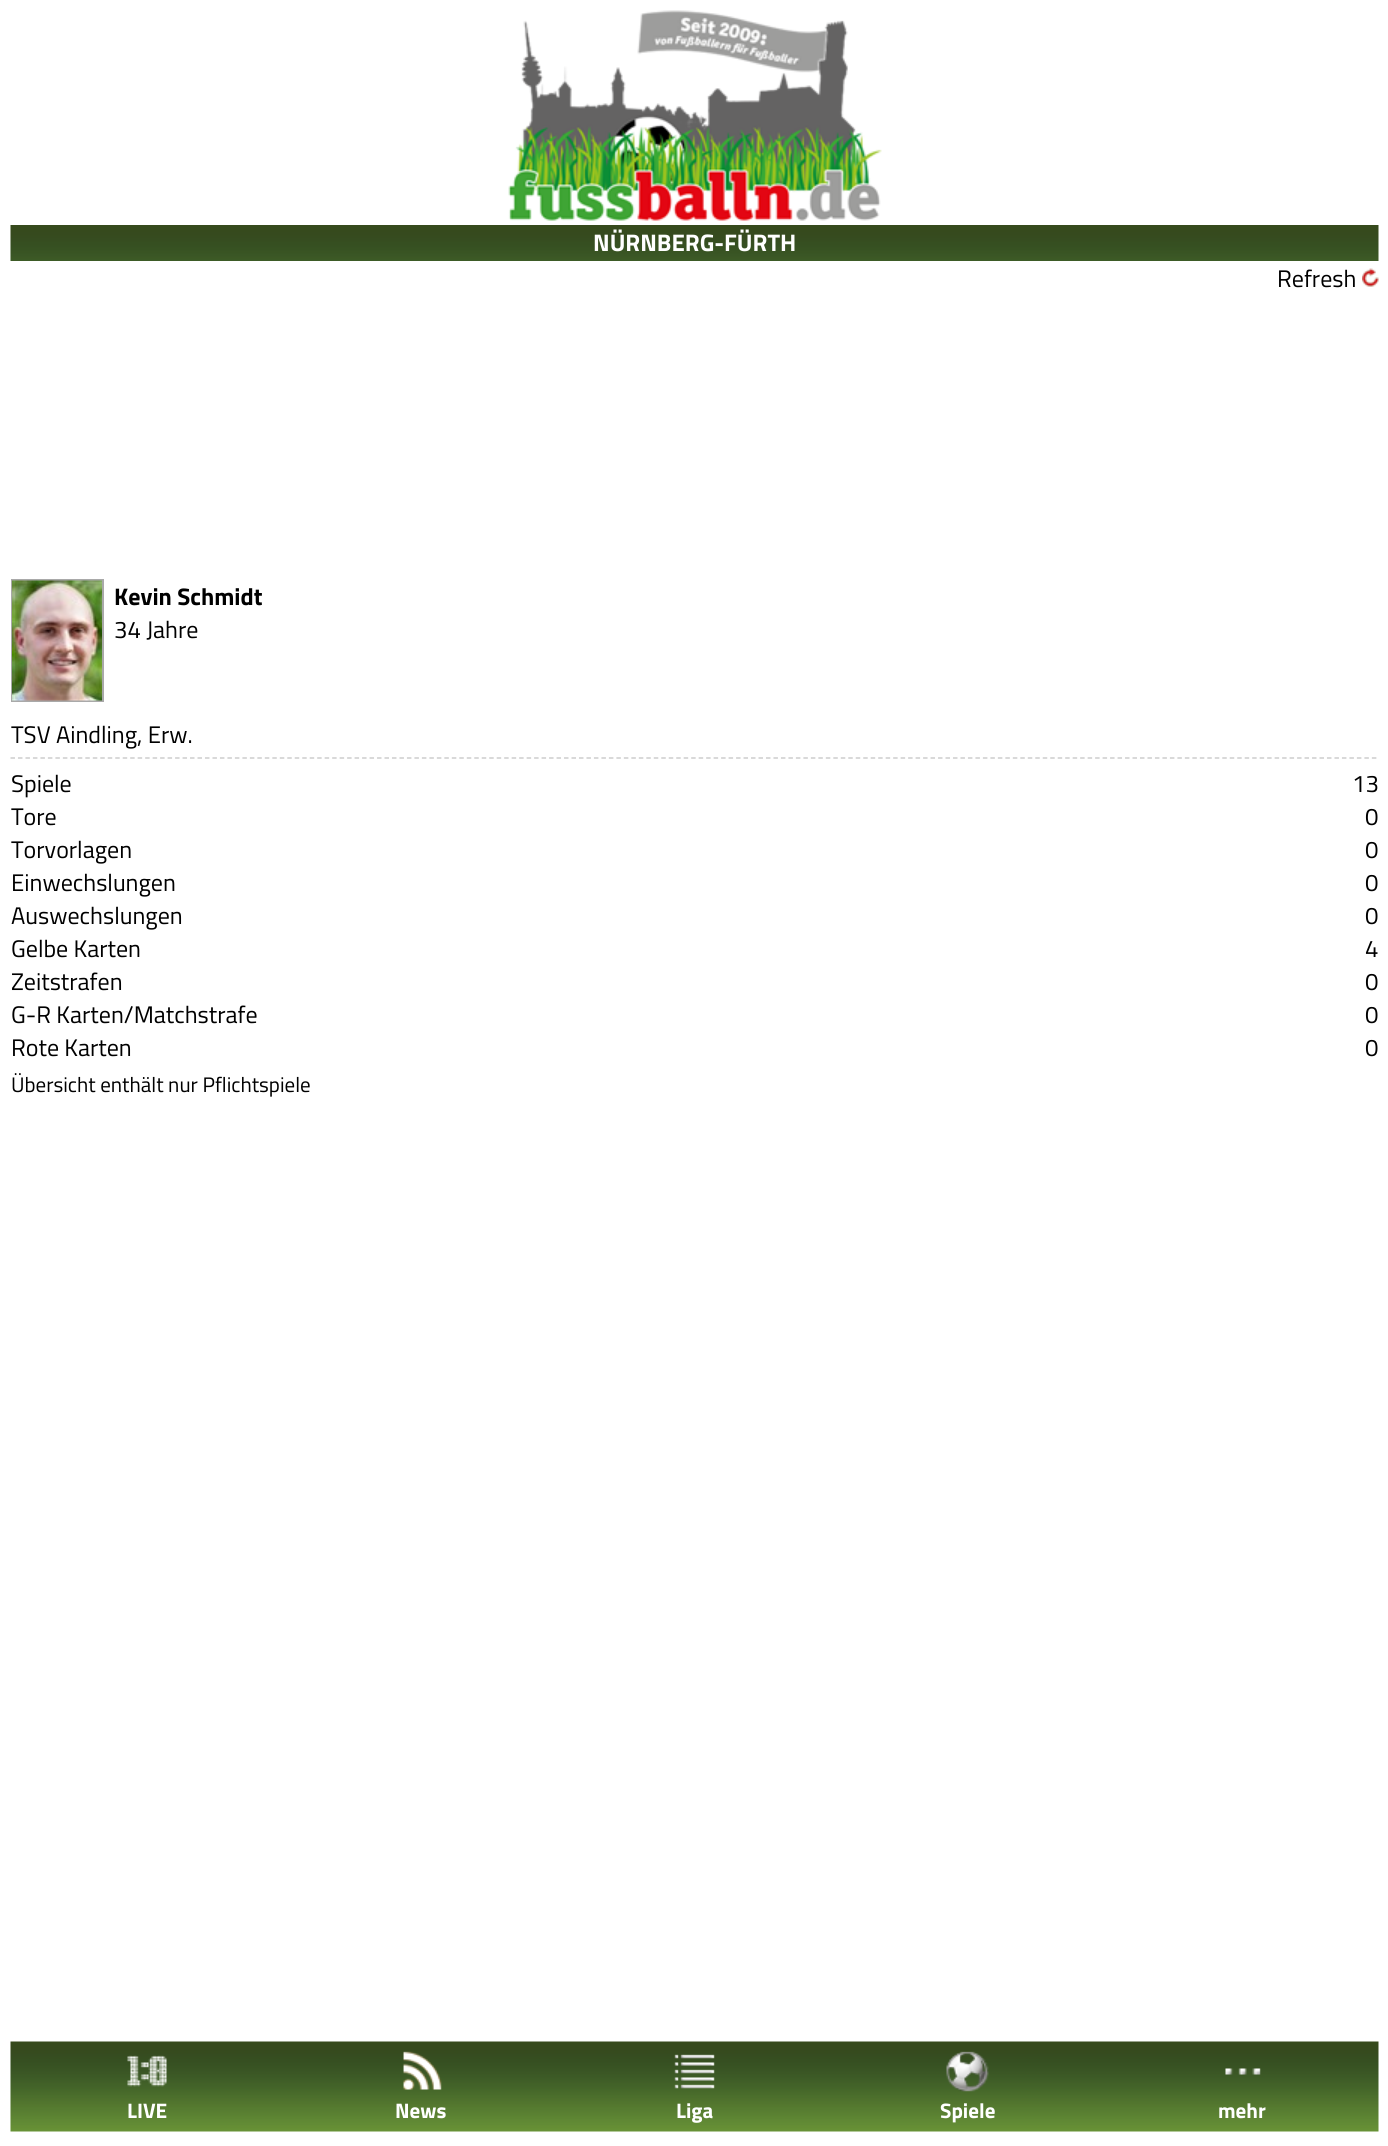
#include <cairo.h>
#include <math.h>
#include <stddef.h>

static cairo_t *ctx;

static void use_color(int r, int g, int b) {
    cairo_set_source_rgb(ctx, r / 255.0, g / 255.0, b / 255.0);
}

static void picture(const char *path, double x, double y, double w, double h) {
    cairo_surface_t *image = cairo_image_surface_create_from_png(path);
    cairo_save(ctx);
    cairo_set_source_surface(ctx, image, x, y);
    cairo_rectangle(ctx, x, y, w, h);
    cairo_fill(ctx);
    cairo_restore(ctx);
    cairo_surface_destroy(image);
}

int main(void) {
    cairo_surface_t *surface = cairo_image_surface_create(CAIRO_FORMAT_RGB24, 1388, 2146);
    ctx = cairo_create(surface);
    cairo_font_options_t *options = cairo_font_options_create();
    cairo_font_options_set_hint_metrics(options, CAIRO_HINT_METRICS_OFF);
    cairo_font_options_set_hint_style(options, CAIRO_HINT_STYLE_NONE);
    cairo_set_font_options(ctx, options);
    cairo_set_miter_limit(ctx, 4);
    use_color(255, 255, 255);
    cairo_paint(ctx);
    picture("img1.png", 508, 10, 374, 211);
    picture("img2.png", 10, 225, 1369, 36);
    cairo_select_font_face(ctx, "Titillium Web", CAIRO_FONT_SLANT_NORMAL, CAIRO_FONT_WEIGHT_BOLD);
    cairo_set_font_size(ctx, 24);
    use_color(255, 255, 255);
    cairo_move_to(ctx, 593, 251);
    cairo_show_text(ctx, "NÜRNBERG-FÜRTH");
    cairo_select_font_face(ctx, "Titillium Web", CAIRO_FONT_SLANT_NORMAL, CAIRO_FONT_WEIGHT_NORMAL);
    use_color(0, 0, 0);
    cairo_move_to(ctx, 1277, 287);
    cairo_show_text(ctx, "Refresh");
    picture("img3.png", 1362, 268, 17, 19);
    cairo_rectangle(ctx, 12, 580, 91, 121);
    use_color(169, 169, 169);
    cairo_stroke(ctx);
    picture("img4.png", 12, 580, 90, 121);
    cairo_select_font_face(ctx, "Titillium Web", CAIRO_FONT_SLANT_NORMAL, CAIRO_FONT_WEIGHT_BOLD);
    use_color(0, 0, 0);
    cairo_move_to(ctx, 114, 605);
    cairo_show_text(ctx, "Kevin Schmidt");
    cairo_select_font_face(ctx, "Titillium Web", CAIRO_FONT_SLANT_NORMAL, CAIRO_FONT_WEIGHT_NORMAL);
    cairo_move_to(ctx, 114, 638);
    cairo_show_text(ctx, "34 Jahre");
    cairo_move_to(ctx, 11, 743);
    cairo_show_text(ctx, "TSV Aindling, Erw.");
    cairo_new_path(ctx);
    cairo_move_to(ctx, 10.5, 758);
    cairo_line_to(ctx, 1378.5, 758);
    use_color(205, 205, 205);
    cairo_set_line_width(ctx, 1.5);
    cairo_set_dash(ctx, (double[]){4.5, 2.98}, 2, 0);
    cairo_stroke(ctx);
    use_color(0, 0, 0);
    cairo_move_to(ctx, 11, 792);
    cairo_show_text(ctx, "Spiele");
    cairo_move_to(ctx, 1352, 792);
    cairo_show_text(ctx, "13");
    cairo_move_to(ctx, 11, 825);
    cairo_show_text(ctx, "Tore");
    cairo_move_to(ctx, 1365, 825);
    cairo_show_text(ctx, "0");
    cairo_move_to(ctx, 11, 858);
    cairo_show_text(ctx, "Torvorlagen");
    cairo_move_to(ctx, 1365, 858);
    cairo_show_text(ctx, "0");
    cairo_move_to(ctx, 11, 891);
    cairo_show_text(ctx, "Einwechslungen");
    cairo_move_to(ctx, 1365, 891);
    cairo_show_text(ctx, "0");
    cairo_move_to(ctx, 11, 924);
    cairo_show_text(ctx, "Auswechslungen");
    cairo_move_to(ctx, 1365, 924);
    cairo_show_text(ctx, "0");
    cairo_move_to(ctx, 11, 957);
    cairo_show_text(ctx, "Gelbe Karten");
    cairo_move_to(ctx, 1365, 957);
    cairo_show_text(ctx, "4");
    cairo_move_to(ctx, 11, 990);
    cairo_show_text(ctx, "Zeitstrafen");
    cairo_move_to(ctx, 1365, 990);
    cairo_show_text(ctx, "0");
    cairo_move_to(ctx, 11, 1023);
    cairo_show_text(ctx, "G-R Karten/Matchstrafe");
    cairo_move_to(ctx, 1365, 1023);
    cairo_show_text(ctx, "0");
    cairo_move_to(ctx, 11, 1056);
    cairo_show_text(ctx, "Rote Karten");
    cairo_move_to(ctx, 1365, 1056);
    cairo_show_text(ctx, "0");
    cairo_set_font_size(ctx, 21);
    cairo_move_to(ctx, 11, 1092);
    cairo_show_text(ctx, "Übersicht enthält nur Pflichtspiele");
    picture("img5.png", 10, 2041, 1369, 91);
    picture("img6.png", 127, 2055, 40, 32);
    cairo_select_font_face(ctx, "Titillium Web", CAIRO_FONT_SLANT_NORMAL, CAIRO_FONT_WEIGHT_BOLD);
    use_color(255, 255, 255);
    cairo_move_to(ctx, 127, 2118);
    cairo_show_text(ctx, "LIVE");
    picture("img7.png", 403, 2051, 39, 39);
    cairo_move_to(ctx, 395, 2118);
    cairo_show_text(ctx, "News");
    picture("img8.png", 674, 2054, 41, 35);
    cairo_move_to(ctx, 676, 2118);
    cairo_show_text(ctx, "Liga");
    picture("img9.png", 946, 2051, 43, 41);
    cairo_move_to(ctx, 940, 2118);
    cairo_show_text(ctx, "Spiele");
    picture("img10.png", 1225, 2068, 36, 7);
    cairo_move_to(ctx, 1218, 2118);
    cairo_show_text(ctx, "mehr");
    cairo_surface_write_to_png(surface, "result.png");
    cairo_font_options_destroy(options);
    cairo_destroy(ctx);
    cairo_surface_destroy(surface);
    return 0;
}
